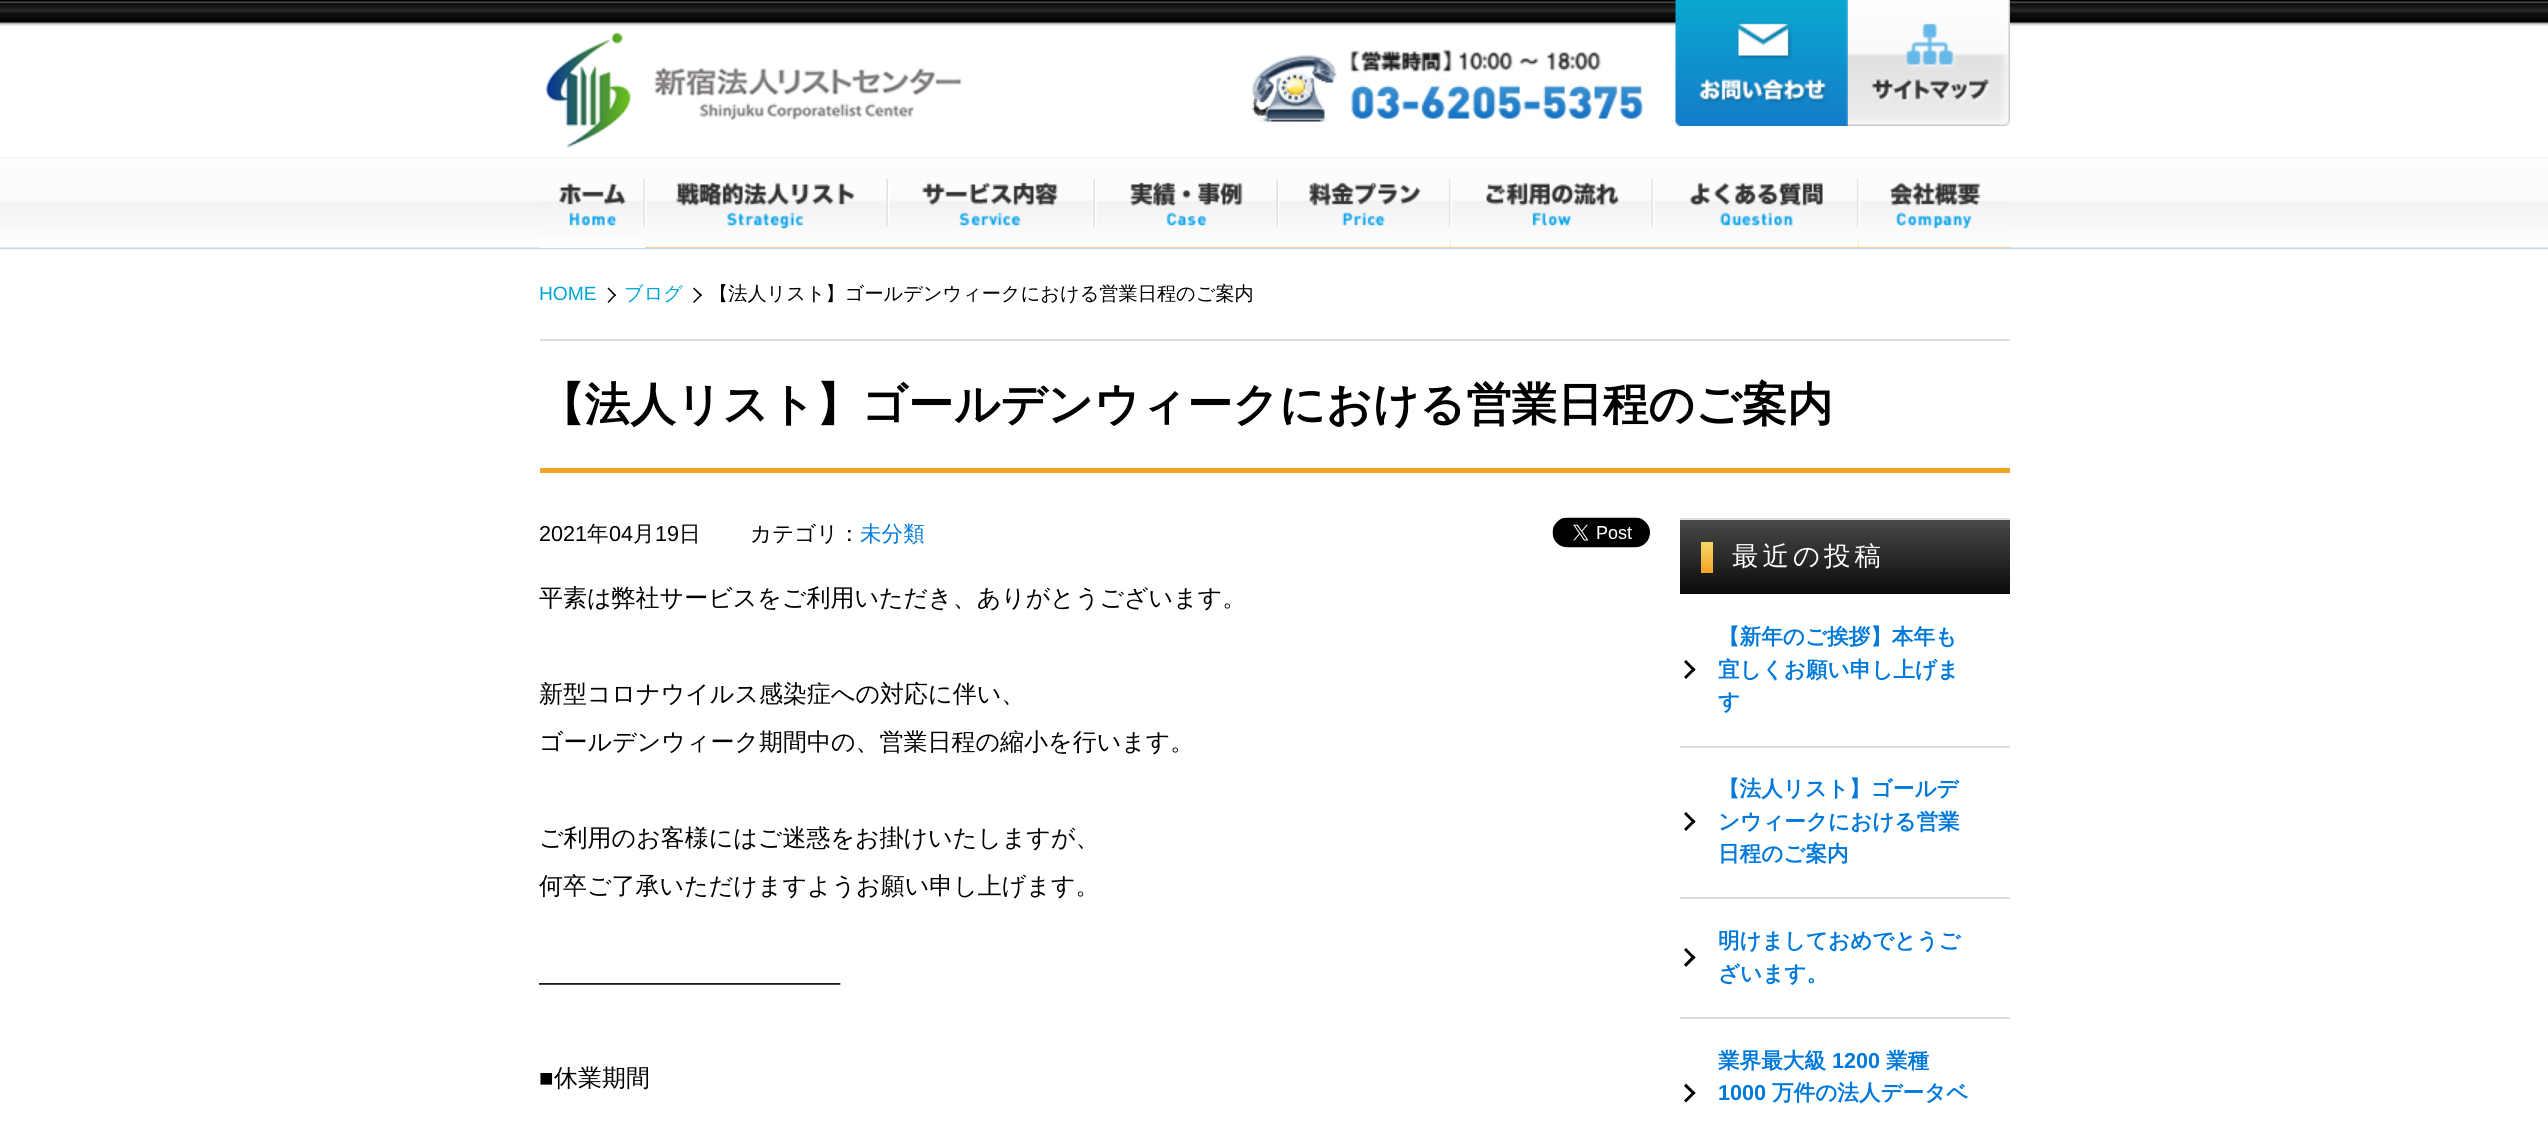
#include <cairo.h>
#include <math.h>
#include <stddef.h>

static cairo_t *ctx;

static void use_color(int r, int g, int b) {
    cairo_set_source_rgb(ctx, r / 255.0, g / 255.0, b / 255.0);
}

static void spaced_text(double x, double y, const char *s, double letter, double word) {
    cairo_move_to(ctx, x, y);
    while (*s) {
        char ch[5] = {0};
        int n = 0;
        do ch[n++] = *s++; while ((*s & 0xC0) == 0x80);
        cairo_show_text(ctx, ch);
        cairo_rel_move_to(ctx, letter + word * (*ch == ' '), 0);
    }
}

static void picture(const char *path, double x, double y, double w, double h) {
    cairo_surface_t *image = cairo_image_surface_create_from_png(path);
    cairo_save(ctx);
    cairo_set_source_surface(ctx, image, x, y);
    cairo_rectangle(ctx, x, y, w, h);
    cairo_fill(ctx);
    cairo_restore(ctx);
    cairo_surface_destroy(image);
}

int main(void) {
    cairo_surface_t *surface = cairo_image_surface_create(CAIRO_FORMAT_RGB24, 2548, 1121);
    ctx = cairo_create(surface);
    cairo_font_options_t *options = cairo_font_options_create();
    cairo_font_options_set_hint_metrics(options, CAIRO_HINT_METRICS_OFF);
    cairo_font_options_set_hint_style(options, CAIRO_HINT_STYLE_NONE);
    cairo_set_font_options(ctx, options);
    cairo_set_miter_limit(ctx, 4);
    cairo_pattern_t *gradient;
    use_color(255, 255, 255);
    cairo_paint(ctx);
    picture("img1.png", 0, 0, 2548, 26);
    picture("img2.png", 545, 32, 417, 116);
    picture("img3.png", 1251, 49, 392, 73);
    picture("img4.png", 1675, 0, 173, 126);
    picture("img5.png", 1848, 0, 162, 126);
    picture("img6.png", 0, 157, 2548, 92);
    picture("img7.png", 540, 178, 1470, 70);
    use_color(254, 254, 254);
    cairo_rectangle(ctx, 540, 239, 105, 9);
    cairo_fill(ctx);
    picture("img8.png", 645, 179, 243, 69);
    picture("img9.png", 888, 179, 207, 69);
    picture("img10.png", 1095, 179, 183, 69);
    picture("img11.png", 1278, 179, 173, 69);
    picture("img12.png", 1450, 179, 203, 69);
    picture("img13.png", 1653, 179, 206, 69);
    picture("img14.png", 1858, 179, 152, 69);
    cairo_select_font_face(ctx, "Liberation Sans", CAIRO_FONT_SLANT_NORMAL, CAIRO_FONT_WEIGHT_NORMAL);
    cairo_set_font_size(ctx, 19.2);
    use_color(0, 164, 210);
    cairo_move_to(ctx, 539, 300);
    cairo_show_text(ctx, "HOME");
    use_color(0, 0, 0);
    cairo_new_path(ctx);
    cairo_move_to(ctx, 608.5, 287.5);
    cairo_line_to(ctx, 616, 295);
    cairo_line_to(ctx, 615, 296.5);
    cairo_line_to(ctx, 607.5, 288.5);
    cairo_close_path(ctx);
    cairo_fill(ctx);
    cairo_new_path(ctx);
    cairo_move_to(ctx, 615, 294);
    cairo_line_to(ctx, 616, 295);
    cairo_line_to(ctx, 608.5, 303);
    cairo_line_to(ctx, 607.5, 302);
    cairo_close_path(ctx);
    cairo_fill(ctx);
    cairo_select_font_face(ctx, "WenQuanYi Zen Hei Medium", CAIRO_FONT_SLANT_NORMAL, CAIRO_FONT_WEIGHT_NORMAL);
    use_color(0, 164, 210);
    cairo_move_to(ctx, 624, 300);
    cairo_show_text(ctx, "ブログ");
    use_color(0, 0, 0);
    cairo_new_path(ctx);
    cairo_move_to(ctx, 694, 287.5);
    cairo_line_to(ctx, 702, 295);
    cairo_line_to(ctx, 701, 296.5);
    cairo_line_to(ctx, 693, 288.5);
    cairo_close_path(ctx);
    cairo_fill(ctx);
    cairo_new_path(ctx);
    cairo_move_to(ctx, 701, 294);
    cairo_line_to(ctx, 702, 295);
    cairo_line_to(ctx, 694, 303);
    cairo_line_to(ctx, 693, 302);
    cairo_close_path(ctx);
    cairo_fill(ctx);
    cairo_move_to(ctx, 709, 300);
    cairo_show_text(ctx, "【法人リスト】ゴールデンウィークにおける営業日程のご案内");
    use_color(221, 221, 221);
    cairo_rectangle(ctx, 540, 339, 1470, 2);
    cairo_fill(ctx);
    use_color(241, 164, 37);
    cairo_rectangle(ctx, 540, 468, 1470, 5);
    cairo_fill(ctx);
    cairo_select_font_face(ctx, "WenQuanYi Zen Hei", CAIRO_FONT_SLANT_NORMAL, CAIRO_FONT_WEIGHT_BOLD);
    cairo_set_font_size(ctx, 45.6);
    use_color(0, 0, 0);
    cairo_move_to(ctx, 539, 420);
    cairo_show_text(ctx, "【法人リスト】ゴールデンウィークにおける営業日程のご案内");
    cairo_select_font_face(ctx, "Liberation Sans", CAIRO_FONT_SLANT_NORMAL, CAIRO_FONT_WEIGHT_NORMAL);
    cairo_set_font_size(ctx, 21.6);
    cairo_move_to(ctx, 539, 541);
    cairo_show_text(ctx, "2021");
    cairo_select_font_face(ctx, "WenQuanYi Zen Hei Medium", CAIRO_FONT_SLANT_NORMAL, CAIRO_FONT_WEIGHT_NORMAL);
    cairo_move_to(ctx, 587, 541);
    cairo_show_text(ctx, "年");
    cairo_select_font_face(ctx, "Liberation Sans", CAIRO_FONT_SLANT_NORMAL, CAIRO_FONT_WEIGHT_NORMAL);
    cairo_move_to(ctx, 609, 541);
    cairo_show_text(ctx, "04");
    cairo_select_font_face(ctx, "WenQuanYi Zen Hei Medium", CAIRO_FONT_SLANT_NORMAL, CAIRO_FONT_WEIGHT_NORMAL);
    cairo_move_to(ctx, 633, 541);
    cairo_show_text(ctx, "月");
    cairo_select_font_face(ctx, "Liberation Sans", CAIRO_FONT_SLANT_NORMAL, CAIRO_FONT_WEIGHT_NORMAL);
    cairo_move_to(ctx, 655, 541);
    cairo_show_text(ctx, "19");
    cairo_select_font_face(ctx, "WenQuanYi Zen Hei Medium", CAIRO_FONT_SLANT_NORMAL, CAIRO_FONT_WEIGHT_NORMAL);
    cairo_move_to(ctx, 679, 541);
    cairo_show_text(ctx, "日");
    cairo_move_to(ctx, 750, 541);
    cairo_show_text(ctx, "カテゴリ：");
    use_color(0, 121, 218);
    cairo_move_to(ctx, 860, 541);
    cairo_show_text(ctx, "未分類");
    picture("img15.png", 1552, 517, 98, 31);
    cairo_set_font_size(ctx, 24);
    use_color(0, 0, 0);
    cairo_move_to(ctx, 539, 606);
    cairo_show_text(ctx, "平素は弊社サービスをご利用いただき、ありがとうございます。");
    cairo_move_to(ctx, 539, 702);
    cairo_show_text(ctx, "新型コロナウイルス感染症への対応に伴い、");
    cairo_move_to(ctx, 539, 750);
    cairo_show_text(ctx, "ゴールデンウィーク期間中の、営業日程の縮小を行います。");
    cairo_move_to(ctx, 539, 846);
    cairo_show_text(ctx, "ご利用のお客様にはご迷惑をお掛けいたしますが、");
    cairo_move_to(ctx, 539, 894);
    cairo_show_text(ctx, "何卒ご了承いただけますようお願い申し上げます。");
    cairo_select_font_face(ctx, "Liberation Sans", CAIRO_FONT_SLANT_NORMAL, CAIRO_FONT_WEIGHT_NORMAL);
    cairo_move_to(ctx, 539, 990);
    cairo_show_text(ctx, "————————————–");
    cairo_move_to(ctx, 539, 1086);
    cairo_show_text(ctx, "■");
    cairo_select_font_face(ctx, "WenQuanYi Zen Hei Medium", CAIRO_FONT_SLANT_NORMAL, CAIRO_FONT_WEIGHT_NORMAL);
    cairo_move_to(ctx, 554, 1086);
    cairo_show_text(ctx, "休業期間");
    gradient = cairo_pattern_create_linear(1845, 519, 1845, 594);
    cairo_pattern_add_color_stop_rgba(gradient, 0, 0.29, 0.29, 0.29, 1);
    cairo_pattern_add_color_stop_rgba(gradient, 1, 0.039, 0.039, 0.039, 1);
    cairo_set_source(ctx, gradient);
    cairo_pattern_destroy(gradient);
    cairo_rectangle(ctx, 1680, 520, 330, 74);
    cairo_fill(ctx);
    use_color(221, 221, 221);
    cairo_rectangle(ctx, 1680, 518, 330, 2);
    cairo_fill(ctx);
    gradient = cairo_pattern_create_linear(1707, 542, 1707, 573);
    cairo_pattern_add_color_stop_rgba(gradient, 0, 0.973, 0.843, 0.4, 1);
    cairo_pattern_add_color_stop_rgba(gradient, 1, 0.945, 0.647, 0.149, 1);
    cairo_set_source(ctx, gradient);
    cairo_pattern_destroy(gradient);
    cairo_rectangle(ctx, 1701, 542, 12, 31);
    cairo_fill(ctx);
    cairo_set_font_size(ctx, 26.5);
    use_color(255, 255, 255);
    spaced_text(1732, 565, "最近の投稿", 4, 0);
    use_color(221, 221, 221);
    cairo_rectangle(ctx, 1680, 746, 330, 2);
    cairo_fill(ctx);
    cairo_select_font_face(ctx, "WenQuanYi Zen Hei", CAIRO_FONT_SLANT_NORMAL, CAIRO_FONT_WEIGHT_BOLD);
    cairo_set_font_size(ctx, 21.6);
    use_color(0, 121, 218);
    cairo_move_to(ctx, 1718, 644);
    cairo_show_text(ctx, "【新年のご挨拶】本年も");
    use_color(0, 0, 0);
    cairo_new_path(ctx);
    cairo_move_to(ctx, 1686, 660);
    cairo_line_to(ctx, 1695.5, 669.5);
    cairo_line_to(ctx, 1693.5, 671.5);
    cairo_line_to(ctx, 1684, 662);
    cairo_close_path(ctx);
    cairo_fill(ctx);
    cairo_new_path(ctx);
    cairo_move_to(ctx, 1693.5, 667.5);
    cairo_line_to(ctx, 1695.5, 669.5);
    cairo_line_to(ctx, 1686, 679);
    cairo_line_to(ctx, 1684, 677);
    cairo_close_path(ctx);
    cairo_fill(ctx);
    use_color(0, 121, 218);
    cairo_move_to(ctx, 1718, 677);
    cairo_show_text(ctx, "宜しくお願い申し上げま");
    cairo_move_to(ctx, 1718, 709);
    cairo_show_text(ctx, "す");
    use_color(221, 221, 221);
    cairo_rectangle(ctx, 1680, 897, 330, 2);
    cairo_fill(ctx);
    use_color(0, 121, 218);
    cairo_move_to(ctx, 1718, 796);
    cairo_show_text(ctx, "【法人リスト】ゴールデ");
    use_color(0, 0, 0);
    cairo_new_path(ctx);
    cairo_move_to(ctx, 1686, 812);
    cairo_line_to(ctx, 1695.5, 821.5);
    cairo_line_to(ctx, 1693.5, 823.5);
    cairo_line_to(ctx, 1684, 814);
    cairo_close_path(ctx);
    cairo_fill(ctx);
    cairo_new_path(ctx);
    cairo_move_to(ctx, 1693.5, 819.5);
    cairo_line_to(ctx, 1695.5, 821.5);
    cairo_line_to(ctx, 1686, 831);
    cairo_line_to(ctx, 1684, 829);
    cairo_close_path(ctx);
    cairo_fill(ctx);
    use_color(0, 121, 218);
    cairo_move_to(ctx, 1718, 829);
    cairo_show_text(ctx, "ンウィークにおける営業");
    cairo_move_to(ctx, 1718, 861);
    cairo_show_text(ctx, "日程のご案内");
    use_color(221, 221, 221);
    cairo_rectangle(ctx, 1680, 1017, 330, 2);
    cairo_fill(ctx);
    use_color(0, 121, 218);
    cairo_move_to(ctx, 1718, 948);
    cairo_show_text(ctx, "明けましておめでとうご");
    use_color(0, 0, 0);
    cairo_new_path(ctx);
    cairo_move_to(ctx, 1686, 948);
    cairo_line_to(ctx, 1695.5, 957.5);
    cairo_line_to(ctx, 1693.5, 959.5);
    cairo_line_to(ctx, 1684, 950);
    cairo_close_path(ctx);
    cairo_fill(ctx);
    cairo_new_path(ctx);
    cairo_move_to(ctx, 1693.5, 955);
    cairo_line_to(ctx, 1695.5, 957.5);
    cairo_line_to(ctx, 1686, 967);
    cairo_line_to(ctx, 1684, 964.5);
    cairo_close_path(ctx);
    cairo_fill(ctx);
    use_color(0, 121, 218);
    cairo_move_to(ctx, 1718, 981);
    cairo_show_text(ctx, "ざいます。");
    cairo_move_to(ctx, 1718, 1068);
    cairo_show_text(ctx, "業界最大級");
    cairo_select_font_face(ctx, "Liberation Sans", CAIRO_FONT_SLANT_NORMAL, CAIRO_FONT_WEIGHT_BOLD);
    cairo_move_to(ctx, 1832, 1068);
    cairo_show_text(ctx, "1200");
    cairo_select_font_face(ctx, "WenQuanYi Zen Hei", CAIRO_FONT_SLANT_NORMAL, CAIRO_FONT_WEIGHT_BOLD);
    cairo_move_to(ctx, 1886, 1068);
    cairo_show_text(ctx, "業種");
    use_color(0, 0, 0);
    cairo_new_path(ctx);
    cairo_move_to(ctx, 1686, 1083.5);
    cairo_line_to(ctx, 1695.5, 1093);
    cairo_line_to(ctx, 1693.5, 1095);
    cairo_line_to(ctx, 1684, 1086);
    cairo_close_path(ctx);
    cairo_fill(ctx);
    cairo_new_path(ctx);
    cairo_move_to(ctx, 1693.5, 1091);
    cairo_line_to(ctx, 1695.5, 1093);
    cairo_line_to(ctx, 1686, 1102.5);
    cairo_line_to(ctx, 1684, 1100.5);
    cairo_close_path(ctx);
    cairo_fill(ctx);
    cairo_select_font_face(ctx, "Liberation Sans", CAIRO_FONT_SLANT_NORMAL, CAIRO_FONT_WEIGHT_BOLD);
    use_color(0, 121, 218);
    cairo_move_to(ctx, 1718, 1100);
    cairo_show_text(ctx, "1000");
    cairo_select_font_face(ctx, "WenQuanYi Zen Hei", CAIRO_FONT_SLANT_NORMAL, CAIRO_FONT_WEIGHT_BOLD);
    cairo_move_to(ctx, 1772, 1100);
    cairo_show_text(ctx, "万件の法人データベ");
    cairo_surface_write_to_png(surface, "result.png");
    cairo_font_options_destroy(options);
    cairo_destroy(ctx);
    cairo_surface_destroy(surface);
    return 0;
}
